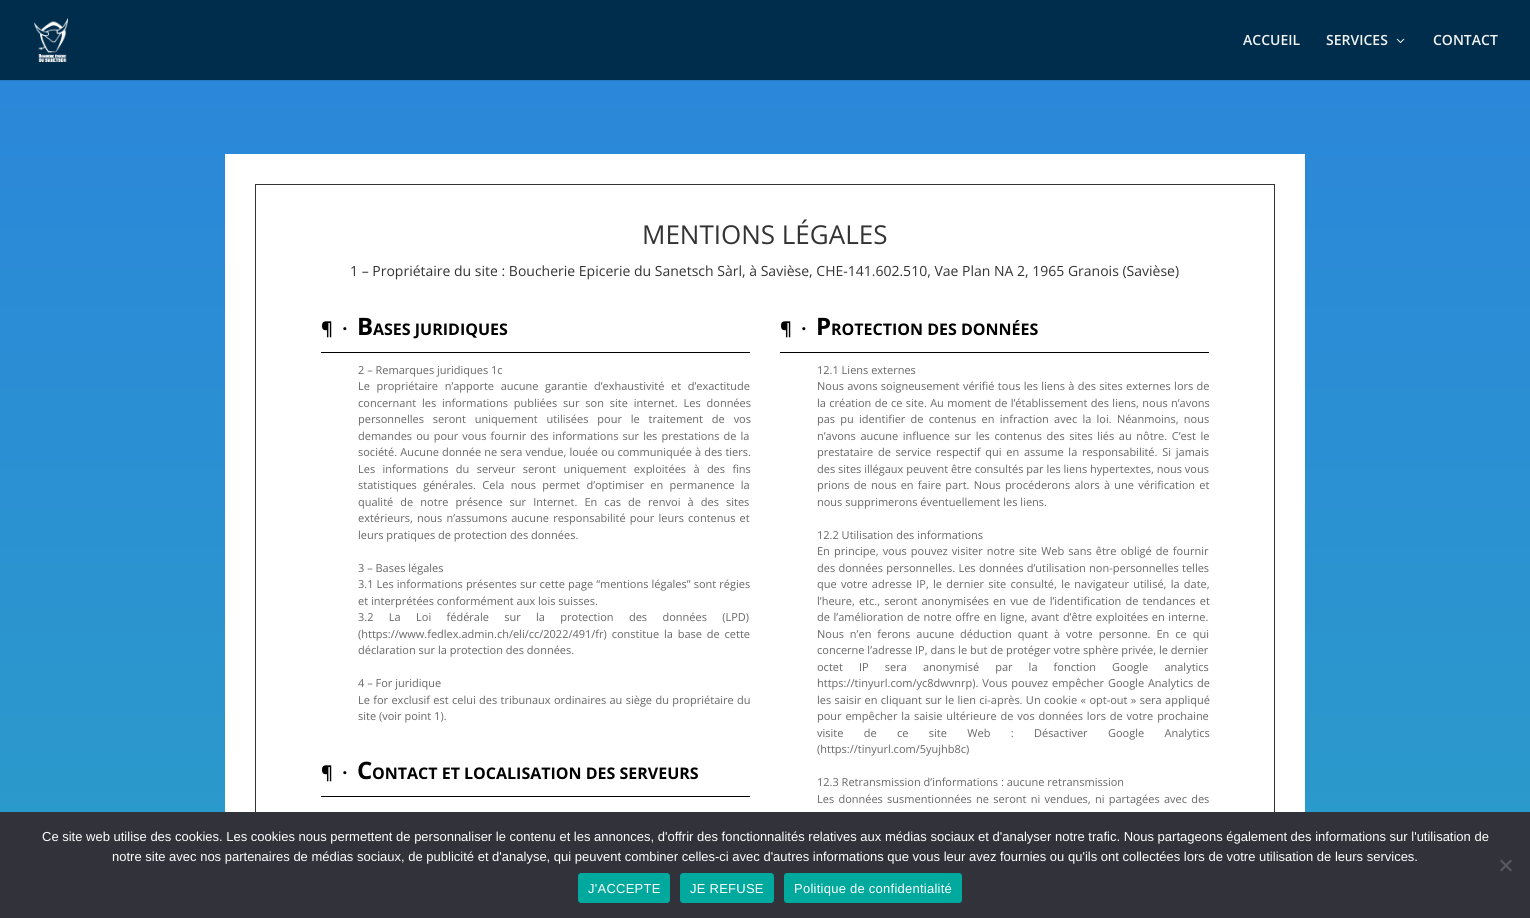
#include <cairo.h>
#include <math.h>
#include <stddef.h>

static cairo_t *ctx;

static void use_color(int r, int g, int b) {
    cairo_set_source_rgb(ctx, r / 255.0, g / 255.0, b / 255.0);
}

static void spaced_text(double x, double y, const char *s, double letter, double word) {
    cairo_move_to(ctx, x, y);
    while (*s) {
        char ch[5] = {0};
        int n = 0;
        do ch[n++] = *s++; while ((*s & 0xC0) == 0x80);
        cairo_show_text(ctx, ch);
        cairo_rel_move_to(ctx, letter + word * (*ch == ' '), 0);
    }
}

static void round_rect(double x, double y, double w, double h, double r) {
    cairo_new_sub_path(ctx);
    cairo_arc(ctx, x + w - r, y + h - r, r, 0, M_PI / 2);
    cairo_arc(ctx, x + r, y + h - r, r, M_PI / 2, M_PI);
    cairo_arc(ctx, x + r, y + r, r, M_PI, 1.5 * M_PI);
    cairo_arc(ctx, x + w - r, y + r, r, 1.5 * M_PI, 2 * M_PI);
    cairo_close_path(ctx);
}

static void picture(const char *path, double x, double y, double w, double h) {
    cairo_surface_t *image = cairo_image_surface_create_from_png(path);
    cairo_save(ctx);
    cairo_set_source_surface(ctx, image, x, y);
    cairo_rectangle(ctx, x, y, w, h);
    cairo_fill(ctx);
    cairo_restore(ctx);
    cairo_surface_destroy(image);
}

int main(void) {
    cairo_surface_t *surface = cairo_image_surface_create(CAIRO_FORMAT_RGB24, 1530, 918);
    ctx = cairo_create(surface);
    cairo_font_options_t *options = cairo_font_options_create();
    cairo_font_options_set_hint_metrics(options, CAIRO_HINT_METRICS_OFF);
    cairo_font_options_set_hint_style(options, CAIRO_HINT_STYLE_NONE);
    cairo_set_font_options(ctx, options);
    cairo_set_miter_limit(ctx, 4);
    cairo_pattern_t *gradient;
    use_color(255, 255, 255);
    cairo_paint(ctx);
    use_color(39, 122, 196);
    cairo_rectangle(ctx, 0, 80, 1530, 1);
    cairo_fill(ctx);
    use_color(0, 45, 76);
    cairo_rectangle(ctx, 0, 0, 1530, 80);
    cairo_fill(ctx);
    picture("img1.png", 34, 18, 34, 44);
    cairo_select_font_face(ctx, "Open Sans SemiBold", CAIRO_FONT_SLANT_NORMAL, CAIRO_FONT_WEIGHT_NORMAL);
    cairo_set_font_size(ctx, 14);
    use_color(242, 245, 246);
    cairo_move_to(ctx, 1243, 45);
    cairo_show_text(ctx, "ACCUEIL");
    cairo_move_to(ctx, 1326, 45);
    cairo_show_text(ctx, "SERVICES");
    picture("img2.png", 1396, 38, 9, 5);
    cairo_move_to(ctx, 1433, 45);
    cairo_show_text(ctx, "CONTACT");
    gradient = cairo_pattern_create_linear(765, 80, 765, 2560);
    cairo_pattern_add_color_stop_rgba(gradient, 0, 0.169, 0.529, 0.855, 1);
    cairo_pattern_add_color_stop_rgba(gradient, 1, 0.161, 0.769, 0.663, 1);
    cairo_set_source(ctx, gradient);
    cairo_pattern_destroy(gradient);
    cairo_rectangle(ctx, 0, 81, 1530, 731);
    cairo_fill(ctx);
    use_color(255, 255, 255);
    cairo_rectangle(ctx, 225, 154, 1080, 658);
    cairo_fill(ctx);
    cairo_rectangle(ctx, 255.5, 184.5, 1019, 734);
    use_color(51, 51, 51);
    cairo_set_line_width(ctx, 1);
    cairo_stroke(ctx);
    cairo_select_font_face(ctx, "Open Sans", CAIRO_FONT_SLANT_NORMAL, CAIRO_FONT_WEIGHT_NORMAL);
    cairo_set_font_size(ctx, 26);
    cairo_move_to(ctx, 642, 244);
    cairo_show_text(ctx, "MENTIONS LÉGALES");
    cairo_set_font_size(ctx, 14);
    cairo_move_to(ctx, 350, 276);
    cairo_show_text(ctx, "1 – Propriétaire du site : Boucherie Epicerie du Sanetsch Sàrl, à Savièse, CHE-141.602.510, Vae Plan NA 2, 1965 Granois (Savièse)");
    cairo_select_font_face(ctx, "Open Sans", CAIRO_FONT_SLANT_NORMAL, CAIRO_FONT_WEIGHT_BOLD);
    cairo_set_font_size(ctx, 18);
    use_color(0, 0, 0);
    cairo_move_to(ctx, 321, 335);
    cairo_show_text(ctx, "¶  ·");
    cairo_set_font_size(ctx, 24);
    cairo_move_to(ctx, 357, 335);
    cairo_show_text(ctx, "B");
    cairo_set_font_size(ctx, 16);
    cairo_move_to(ctx, 373, 335);
    cairo_show_text(ctx, "ASES JURIDIQUES");
    cairo_rectangle(ctx, 321, 352, 429, 1);
    cairo_fill(ctx);
    cairo_select_font_face(ctx, "Open Sans", CAIRO_FONT_SLANT_NORMAL, CAIRO_FONT_WEIGHT_NORMAL);
    cairo_set_font_size(ctx, 11);
    use_color(102, 102, 102);
    cairo_move_to(ctx, 358, 374);
    cairo_show_text(ctx, "2 – Remarques juridiques 1c");
    spaced_text(358, 390, "Le propriétaire n’apporte aucune garantie d’exhaustivité et d’exactitude", 0, 3.75);
    spaced_text(358, 407, "concernant les informations publiées sur son site internet. Les données", 0, 3);
    spaced_text(358, 423, "personnelles seront uniquement utilisées pour le traitement de vos", 0, 6);
    spaced_text(358, 440, "demandes ou pour vous fournir des informations sur les prestations de la", 0, 1.25);
    spaced_text(358, 456, "société. Aucune donnée ne sera vendue, louée ou communiquée à des tiers.", 0, 0.25);
    spaced_text(358, 473, "Les informations du serveur seront uniquement exploitées à des fins", 0, 4.5);
    spaced_text(358, 489, "statistiques générales. Cela nous permet d’optimiser en permanence la", 0, 3.5);
    spaced_text(358, 506, "qualité de notre présence sur Internet. En cas de renvoi à des sites", 0, 4.25);
    spaced_text(358, 522, "extérieurs, nous n’assumons aucune responsabilité pour leurs contenus et", 0, 1.25);
    cairo_move_to(ctx, 358, 539);
    cairo_show_text(ctx, "leurs pratiques de protection des données.");
    cairo_move_to(ctx, 358, 572);
    cairo_show_text(ctx, "3 – Bases légales");
    spaced_text(358, 588, "3.1 Les informations présentes sur cette page “mentions légales” sont régies", 0, 0.25);
    cairo_move_to(ctx, 358, 605);
    cairo_show_text(ctx, "et interprétées conformément aux lois suisses.");
    spaced_text(358, 621, "3.2 La Loi fédérale sur la protection des données (LPD)", 0, 12.5);
    spaced_text(358, 638, "(https://www.fedlex.admin.ch/eli/cc/2022/491/fr) constitue la base de cette", 0, 2);
    cairo_move_to(ctx, 358, 654);
    cairo_show_text(ctx, "déclaration sur la protection des données.");
    cairo_move_to(ctx, 358, 687);
    cairo_show_text(ctx, "4 – For juridique");
    spaced_text(358, 704, "Le for exclusif est celui des tribunaux ordinaires au siège du propriétaire du", 0, 0.5);
    cairo_move_to(ctx, 358, 720);
    cairo_show_text(ctx, "site (voir point 1).");
    cairo_select_font_face(ctx, "Open Sans", CAIRO_FONT_SLANT_NORMAL, CAIRO_FONT_WEIGHT_BOLD);
    cairo_set_font_size(ctx, 18);
    use_color(0, 0, 0);
    cairo_move_to(ctx, 321, 779);
    cairo_show_text(ctx, "¶  ·");
    cairo_set_font_size(ctx, 24);
    cairo_move_to(ctx, 357, 779);
    cairo_show_text(ctx, "C");
    cairo_set_font_size(ctx, 16);
    cairo_move_to(ctx, 372, 779);
    cairo_show_text(ctx, "ONTACT ET LOCALISATION DES SERVEURS");
    cairo_rectangle(ctx, 321, 796, 429, 1);
    cairo_fill(ctx);
    cairo_set_font_size(ctx, 18);
    cairo_move_to(ctx, 780, 335);
    cairo_show_text(ctx, "¶  ·");
    cairo_set_font_size(ctx, 24);
    cairo_move_to(ctx, 816, 335);
    cairo_show_text(ctx, "P");
    cairo_set_font_size(ctx, 16);
    cairo_move_to(ctx, 831, 335);
    cairo_show_text(ctx, "ROTECTION DES DONNÉES");
    cairo_rectangle(ctx, 780, 352, 429, 1);
    cairo_fill(ctx);
    cairo_select_font_face(ctx, "Open Sans", CAIRO_FONT_SLANT_NORMAL, CAIRO_FONT_WEIGHT_NORMAL);
    cairo_set_font_size(ctx, 11);
    use_color(102, 102, 102);
    cairo_move_to(ctx, 817, 374);
    cairo_show_text(ctx, "12.1 Liens externes");
    spaced_text(817, 390, "Nous avons soigneusement vérifié tous les liens à des sites externes lors de", 0, 0.5);
    spaced_text(817, 407, "la création de ce site. Au moment de l’établissement des liens, nous n’avons", 0, 0.5);
    spaced_text(817, 423, "pas pu identifier de contenus en infraction avec la loi. Néanmoins, nous", 0, 2.4);
    spaced_text(817, 440, "n’avons aucune influence sur les contenus des sites liés au nôtre. C’est le", 0, 1.75);
    spaced_text(817, 456, "prestataire de service respectif qui en assume la responsabilité. Si jamais", 0, 1.9);
    cairo_move_to(ctx, 817, 473);
    cairo_show_text(ctx, "des sites illégaux peuvent être consultés par les liens hypertextes, nous vous");
    spaced_text(817, 489, "prions de nous en faire part. Nous procéderons alors à une vérification et", 0, 1.4);
    cairo_move_to(ctx, 817, 506);
    cairo_show_text(ctx, "nous supprimerons éventuellement les liens.");
    cairo_move_to(ctx, 817, 539);
    cairo_show_text(ctx, "12.2 Utilisation des informations");
    spaced_text(817, 555, "En principe, vous pouvez visiter notre site Web sans être obligé de fournir", 0, 1.25);
    spaced_text(817, 572, "des données personnelles. Les données d’utilisation non-personnelles telles", 0, 0.5);
    spaced_text(817, 588, "que votre adresse IP, le dernier site consulté, le navigateur utilisé, la date,", 0, 1.4);
    spaced_text(817, 605, "l’heure, etc., seront anonymisées en vue de l’identification de tendances et", 0, 1.25);
    spaced_text(817, 621, "de l’amélioration de notre offre en ligne, avant d’être exploitées en interne.", 0, 0.75);
    spaced_text(817, 638, "Nous n’en ferons aucune déduction quant à votre personne. En ce qui", 0, 3.1);
    cairo_move_to(ctx, 817, 654);
    cairo_show_text(ctx, "concerne l’adresse IP, dans le but de protéger votre sphère privée, le dernier");
    spaced_text(817, 671, "octet IP sera anonymisé par la fonction Google analytics", 0, 13.25);
    spaced_text(817, 687, "https://tinyurl.com/yc8dwvnrp). Vous pouvez empêcher Google Analytics de", 0, 1);
    spaced_text(817, 704, "les saisir en cliquant sur le lien ci-après. Un cookie « opt-out » sera appliqué", 0, 0.5);
    spaced_text(817, 720, "pour empêcher la saisie ultérieure de vos données lors de votre prochaine", 0, 1);
    spaced_text(817, 737, "visite de ce site Web : Désactiver Google Analytics", 0, 17.5);
    cairo_move_to(ctx, 817, 753);
    cairo_show_text(ctx, "(https://tinyurl.com/5yujhb8c)");
    cairo_move_to(ctx, 817, 786);
    cairo_show_text(ctx, "12.3 Retransmission d’informations : aucune retransmission");
    spaced_text(817, 803, "Les données susmentionnées ne seront ni vendues, ni partagées avec des", 0, 1.4);
    use_color(50, 50, 58);
    cairo_rectangle(ctx, 0, 812, 1530, 106);
    cairo_fill(ctx);
    cairo_select_font_face(ctx, "Liberation Sans", CAIRO_FONT_SLANT_NORMAL, CAIRO_FONT_WEIGHT_NORMAL);
    cairo_set_font_size(ctx, 13);
    use_color(255, 255, 255);
    cairo_move_to(ctx, 42, 841);
    cairo_show_text(ctx, "Ce site web utilise des cookies. Les cookies nous permettent de personnaliser le contenu et les annonces, d'offrir des fonctionnalités relatives aux médias sociaux et d'analyser notre trafic. Nous partageons également des informations sur l'utilisation de");
    cairo_move_to(ctx, 112, 861);
    cairo_show_text(ctx, "notre site avec nos partenaires de médias sociaux, de publicité et d'analyse, qui peuvent combiner celles-ci avec d'autres informations que vous leur avez fournies ou qu'ils ont collectées lors de votre utilisation de leurs services.");
    use_color(89, 89, 93);
    cairo_new_path(ctx);
    cairo_move_to(ctx, 1510.5, 859.5);
    cairo_line_to(ctx, 1512, 861);
    cairo_line_to(ctx, 1501.5, 871.5);
    cairo_line_to(ctx, 1500, 870);
    cairo_close_path(ctx);
    cairo_fill(ctx);
    cairo_new_path(ctx);
    cairo_move_to(ctx, 1500, 861);
    cairo_line_to(ctx, 1501.5, 859.5);
    cairo_line_to(ctx, 1512, 870);
    cairo_line_to(ctx, 1510.5, 871.5);
    cairo_close_path(ctx);
    cairo_fill(ctx);
    use_color(0, 169, 157);
    round_rect(578, 873, 92, 30, 3);
    cairo_fill(ctx);
    use_color(255, 255, 255);
    spaced_text(588, 893, "J'ACCEPTE", 0.25, 0);
    use_color(0, 169, 157);
    round_rect(680, 873, 94, 30, 3);
    cairo_fill(ctx);
    use_color(255, 255, 255);
    spaced_text(690, 893, "JE REFUSE", 0.25, 0);
    use_color(0, 169, 157);
    round_rect(784, 873, 178, 30, 3);
    cairo_fill(ctx);
    use_color(255, 255, 255);
    spaced_text(794, 893, "Politique de confidentialité", 0.25, 0);
    cairo_surface_write_to_png(surface, "result.png");
    cairo_font_options_destroy(options);
    cairo_destroy(ctx);
    cairo_surface_destroy(surface);
    return 0;
}
